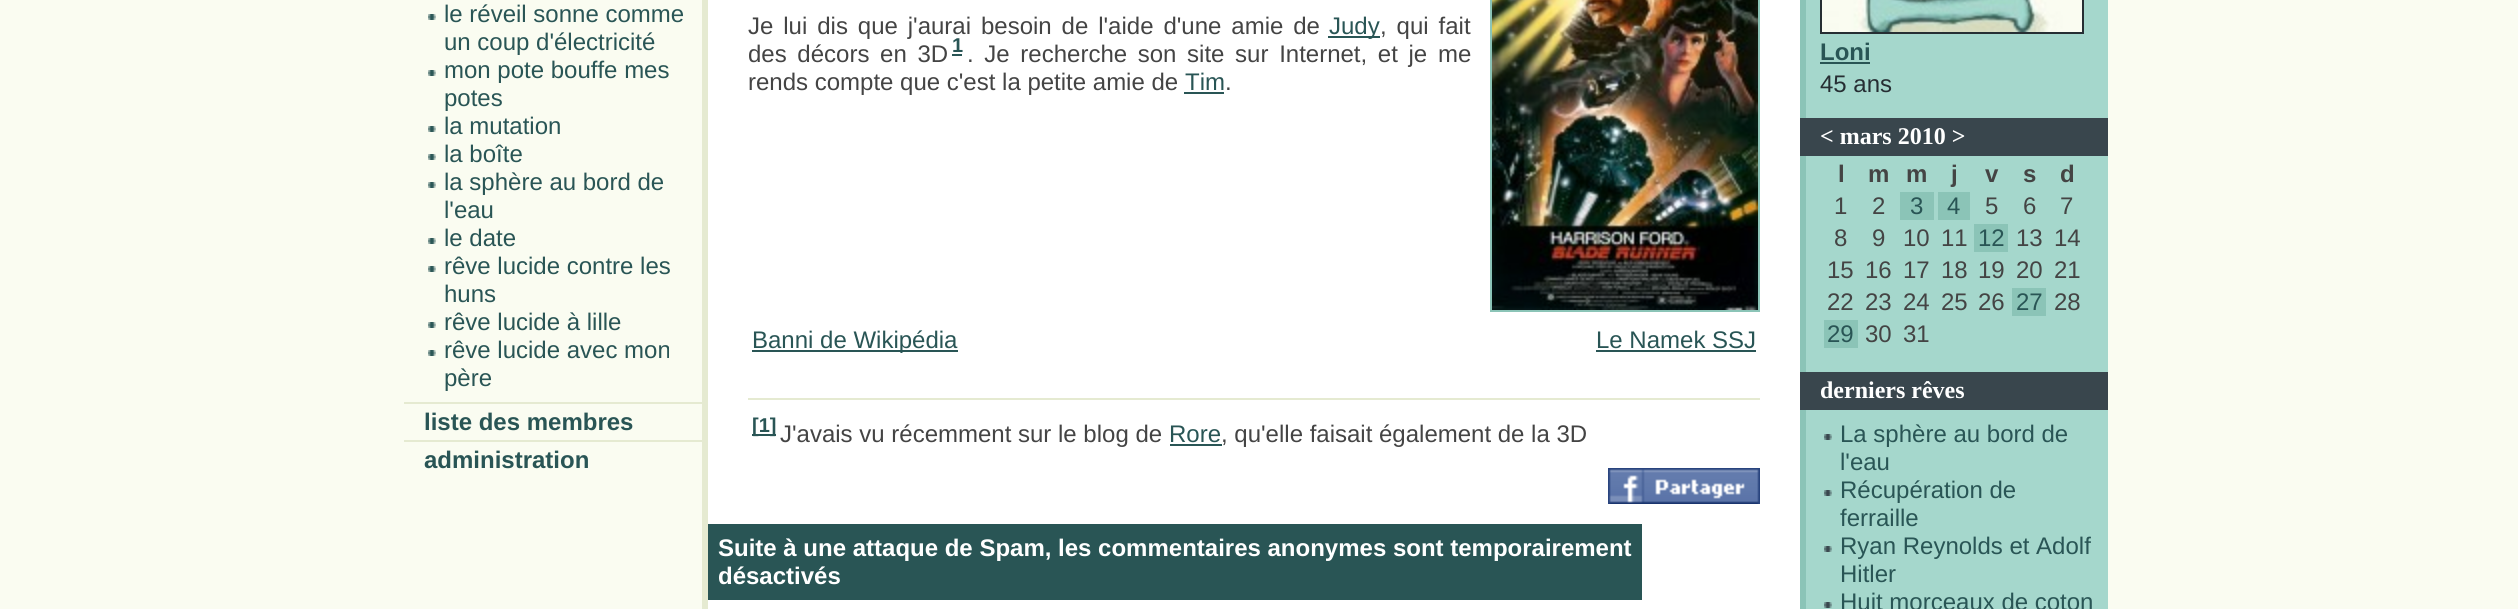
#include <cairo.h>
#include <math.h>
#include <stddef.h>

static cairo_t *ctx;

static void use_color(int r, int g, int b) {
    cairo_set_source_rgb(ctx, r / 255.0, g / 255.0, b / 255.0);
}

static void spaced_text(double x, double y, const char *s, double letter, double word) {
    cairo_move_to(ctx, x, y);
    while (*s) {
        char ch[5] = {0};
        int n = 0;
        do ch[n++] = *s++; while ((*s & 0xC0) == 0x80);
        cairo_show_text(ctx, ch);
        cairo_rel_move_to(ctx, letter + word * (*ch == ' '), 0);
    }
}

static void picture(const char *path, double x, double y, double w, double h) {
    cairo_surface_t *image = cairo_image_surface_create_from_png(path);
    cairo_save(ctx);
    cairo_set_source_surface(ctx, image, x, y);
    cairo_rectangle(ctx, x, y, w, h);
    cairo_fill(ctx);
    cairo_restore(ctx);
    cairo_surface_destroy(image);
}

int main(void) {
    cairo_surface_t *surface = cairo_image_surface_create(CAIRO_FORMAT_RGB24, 2518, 609);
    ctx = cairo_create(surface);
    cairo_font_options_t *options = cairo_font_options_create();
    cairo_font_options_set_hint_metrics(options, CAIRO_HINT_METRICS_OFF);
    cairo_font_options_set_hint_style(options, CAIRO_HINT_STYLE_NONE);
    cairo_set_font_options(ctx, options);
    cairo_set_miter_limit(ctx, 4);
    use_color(250, 252, 241);
    cairo_paint(ctx);
    picture("img1.png", 428, 14, 8, 6);
    cairo_select_font_face(ctx, "Liberation Sans", CAIRO_FONT_SLANT_NORMAL, CAIRO_FONT_WEIGHT_NORMAL);
    cairo_set_font_size(ctx, 24);
    use_color(41, 85, 85);
    cairo_move_to(ctx, 444, 22);
    cairo_show_text(ctx, "le réveil sonne comme");
    cairo_move_to(ctx, 444, 50);
    cairo_show_text(ctx, "un coup d'électricité");
    picture("img1.png", 428, 70, 8, 6);
    cairo_move_to(ctx, 444, 78);
    cairo_show_text(ctx, "mon pote bouffe mes");
    cairo_move_to(ctx, 444, 106);
    cairo_show_text(ctx, "potes");
    picture("img1.png", 428, 126, 8, 6);
    cairo_move_to(ctx, 444, 134);
    cairo_show_text(ctx, "la mutation");
    picture("img1.png", 428, 154, 8, 6);
    cairo_move_to(ctx, 444, 162);
    cairo_show_text(ctx, "la boîte");
    picture("img1.png", 428, 182, 8, 6);
    cairo_move_to(ctx, 444, 190);
    cairo_show_text(ctx, "la sphère au bord de");
    cairo_move_to(ctx, 444, 218);
    cairo_show_text(ctx, "l'eau");
    picture("img1.png", 428, 238, 8, 6);
    cairo_move_to(ctx, 444, 246);
    cairo_show_text(ctx, "le date");
    picture("img1.png", 428, 266, 8, 6);
    cairo_move_to(ctx, 444, 274);
    cairo_show_text(ctx, "rêve lucide contre les");
    cairo_move_to(ctx, 444, 302);
    cairo_show_text(ctx, "huns");
    picture("img1.png", 428, 322, 8, 6);
    cairo_move_to(ctx, 444, 330);
    cairo_show_text(ctx, "rêve lucide à lille");
    picture("img1.png", 428, 350, 8, 6);
    cairo_move_to(ctx, 444, 358);
    cairo_show_text(ctx, "rêve lucide avec mon");
    cairo_move_to(ctx, 444, 386);
    cairo_show_text(ctx, "père");
    use_color(229, 234, 209);
    cairo_rectangle(ctx, 404, 402, 298, 2);
    cairo_fill(ctx);
    cairo_select_font_face(ctx, "Liberation Sans", CAIRO_FONT_SLANT_NORMAL, CAIRO_FONT_WEIGHT_BOLD);
    use_color(41, 85, 85);
    cairo_move_to(ctx, 424, 430);
    cairo_show_text(ctx, "liste des membres");
    use_color(229, 234, 209);
    cairo_rectangle(ctx, 404, 440, 298, 2);
    cairo_fill(ctx);
    use_color(41, 85, 85);
    cairo_move_to(ctx, 424, 468);
    cairo_show_text(ctx, "administration");
    use_color(255, 255, 255);
    cairo_rectangle(ctx, 708, 0, 1092, 609);
    cairo_fill(ctx);
    use_color(229, 234, 209);
    cairo_rectangle(ctx, 702, 0, 6, 609);
    cairo_fill(ctx);
    cairo_select_font_face(ctx, "Liberation Sans", CAIRO_FONT_SLANT_NORMAL, CAIRO_FONT_WEIGHT_NORMAL);
    use_color(68, 68, 68);
    spaced_text(748, 34, "Je lui dis que j'aurai besoin de l'aide d'une amie de", 0, 3.25);
    use_color(41, 85, 85);
    cairo_rectangle(ctx, 1328, 36, 52, 2);
    cairo_fill(ctx);
    cairo_move_to(ctx, 1329, 34);
    cairo_show_text(ctx, "Judy");
    use_color(68, 68, 68);
    spaced_text(1380, 34, ", qui fait", 0, 3.25);
    spaced_text(748, 62, "des décors en 3D", 0, 4);
    cairo_select_font_face(ctx, "Liberation Sans", CAIRO_FONT_SLANT_NORMAL, CAIRO_FONT_WEIGHT_BOLD);
    cairo_set_font_size(ctx, 20);
    use_color(41, 85, 85);
    cairo_move_to(ctx, 952, 52);
    cairo_show_text(ctx, "1");
    cairo_rectangle(ctx, 952, 54, 10, 2);
    cairo_fill(ctx);
    cairo_select_font_face(ctx, "Liberation Sans", CAIRO_FONT_SLANT_NORMAL, CAIRO_FONT_WEIGHT_NORMAL);
    cairo_set_font_size(ctx, 24);
    use_color(68, 68, 68);
    spaced_text(967, 62, ". Je recherche son site sur Internet, et je me", 0, 4);
    cairo_move_to(ctx, 748, 90);
    cairo_show_text(ctx, "rends compte que c'est la petite amie de");
    use_color(41, 85, 85);
    cairo_move_to(ctx, 1185, 90);
    cairo_show_text(ctx, "Tim");
    cairo_rectangle(ctx, 1184, 92, 40, 2);
    cairo_fill(ctx);
    use_color(68, 68, 68);
    cairo_move_to(ctx, 1225, 90);
    cairo_show_text(ctx, ".");
    cairo_rectangle(ctx, 1491, -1, 268, 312);
    use_color(139, 196, 183);
    cairo_stroke(ctx);
    picture("img2.png", 1492, 0, 266, 310);
    use_color(41, 85, 85);
    cairo_rectangle(ctx, 752, 350, 206, 2);
    cairo_fill(ctx);
    cairo_move_to(ctx, 752, 348);
    cairo_show_text(ctx, "Banni de Wikipédia");
    cairo_move_to(ctx, 1596, 348);
    cairo_show_text(ctx, "Le Namek SSJ");
    cairo_rectangle(ctx, 1596, 350, 160, 2);
    cairo_fill(ctx);
    use_color(229, 234, 209);
    cairo_rectangle(ctx, 748, 398, 1012, 2);
    cairo_fill(ctx);
    use_color(41, 85, 85);
    cairo_rectangle(ctx, 752, 434, 24, 2);
    cairo_fill(ctx);
    cairo_select_font_face(ctx, "Liberation Sans", CAIRO_FONT_SLANT_NORMAL, CAIRO_FONT_WEIGHT_BOLD);
    cairo_set_font_size(ctx, 20);
    cairo_move_to(ctx, 752, 432);
    cairo_show_text(ctx, "[1]");
    cairo_select_font_face(ctx, "Liberation Sans", CAIRO_FONT_SLANT_NORMAL, CAIRO_FONT_WEIGHT_NORMAL);
    cairo_set_font_size(ctx, 24);
    use_color(68, 68, 68);
    cairo_move_to(ctx, 780, 442);
    cairo_show_text(ctx, "J'avais vu récemment sur le blog de");
    use_color(41, 85, 85);
    cairo_move_to(ctx, 1169, 442);
    cairo_show_text(ctx, "Rore");
    cairo_rectangle(ctx, 1170, 444, 52, 2);
    cairo_fill(ctx);
    use_color(68, 68, 68);
    cairo_move_to(ctx, 1221, 442);
    cairo_show_text(ctx, ", qu'elle faisait également de la 3D");
    picture("img3.png", 1608, 468, 152, 36);
    use_color(41, 85, 85);
    cairo_rectangle(ctx, 708, 524, 934, 76);
    cairo_fill(ctx);
    cairo_select_font_face(ctx, "Liberation Sans", CAIRO_FONT_SLANT_NORMAL, CAIRO_FONT_WEIGHT_BOLD);
    use_color(255, 255, 255);
    cairo_move_to(ctx, 718, 556);
    cairo_show_text(ctx, "Suite à une attaque de Spam, les commentaires anonymes sont temporairement");
    cairo_move_to(ctx, 718, 584);
    cairo_show_text(ctx, "désactivés");
    use_color(165, 215, 204);
    cairo_rectangle(ctx, 1806, 0, 302, 609);
    cairo_fill(ctx);
    use_color(139, 196, 183);
    cairo_rectangle(ctx, 1800, 0, 6, 609);
    cairo_fill(ctx);
    cairo_rectangle(ctx, 1821, -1, 262, 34);
    use_color(38, 46, 51);
    cairo_stroke(ctx);
    picture("img4.png", 1822, 0, 260, 32);
    use_color(41, 85, 85);
    cairo_move_to(ctx, 1820, 60);
    cairo_show_text(ctx, "Loni");
    cairo_rectangle(ctx, 1820, 62, 50, 2);
    cairo_fill(ctx);
    cairo_select_font_face(ctx, "Liberation Sans", CAIRO_FONT_SLANT_NORMAL, CAIRO_FONT_WEIGHT_NORMAL);
    use_color(38, 46, 51);
    cairo_move_to(ctx, 1820, 92);
    cairo_show_text(ctx, "45 ans");
    use_color(57, 70, 77);
    cairo_rectangle(ctx, 1800, 118, 308, 38);
    cairo_fill(ctx);
    cairo_select_font_face(ctx, "Liberation Serif", CAIRO_FONT_SLANT_NORMAL, CAIRO_FONT_WEIGHT_BOLD);
    use_color(255, 255, 255);
    cairo_move_to(ctx, 1820, 144);
    cairo_show_text(ctx, "< mars 2010 >");
    cairo_select_font_face(ctx, "Liberation Sans", CAIRO_FONT_SLANT_NORMAL, CAIRO_FONT_WEIGHT_BOLD);
    use_color(68, 68, 68);
    cairo_move_to(ctx, 1838, 182);
    cairo_show_text(ctx, "l");
    cairo_move_to(ctx, 1868, 182);
    cairo_show_text(ctx, "m");
    cairo_move_to(ctx, 1906, 182);
    cairo_show_text(ctx, "m");
    cairo_move_to(ctx, 1951, 182);
    cairo_show_text(ctx, "j");
    cairo_move_to(ctx, 1985, 182);
    cairo_show_text(ctx, "v");
    cairo_move_to(ctx, 2023, 182);
    cairo_show_text(ctx, "s");
    cairo_move_to(ctx, 2060, 182);
    cairo_show_text(ctx, "d");
    cairo_select_font_face(ctx, "Liberation Sans", CAIRO_FONT_SLANT_NORMAL, CAIRO_FONT_WEIGHT_NORMAL);
    cairo_move_to(ctx, 1834, 214);
    cairo_show_text(ctx, "1");
    cairo_move_to(ctx, 1872, 214);
    cairo_show_text(ctx, "2");
    use_color(139, 196, 183);
    cairo_rectangle(ctx, 1900, 192, 34, 28);
    cairo_fill(ctx);
    use_color(41, 85, 85);
    cairo_move_to(ctx, 1910, 214);
    cairo_show_text(ctx, "3");
    use_color(139, 196, 183);
    cairo_rectangle(ctx, 1938, 192, 32, 28);
    cairo_fill(ctx);
    use_color(41, 85, 85);
    cairo_move_to(ctx, 1947, 214);
    cairo_show_text(ctx, "4");
    use_color(68, 68, 68);
    cairo_move_to(ctx, 1985, 214);
    cairo_show_text(ctx, "5");
    cairo_move_to(ctx, 2023, 214);
    cairo_show_text(ctx, "6");
    cairo_move_to(ctx, 2060, 214);
    cairo_show_text(ctx, "7");
    cairo_move_to(ctx, 1834, 246);
    cairo_show_text(ctx, "8");
    cairo_move_to(ctx, 1872, 246);
    cairo_show_text(ctx, "9");
    cairo_move_to(ctx, 1903, 246);
    cairo_show_text(ctx, "10");
    cairo_move_to(ctx, 1941, 246);
    cairo_show_text(ctx, "11");
    use_color(139, 196, 183);
    cairo_rectangle(ctx, 1974, 224, 34, 28);
    cairo_fill(ctx);
    use_color(41, 85, 85);
    cairo_move_to(ctx, 1978, 246);
    cairo_show_text(ctx, "12");
    use_color(68, 68, 68);
    cairo_move_to(ctx, 2016, 246);
    cairo_show_text(ctx, "13");
    cairo_move_to(ctx, 2054, 246);
    cairo_show_text(ctx, "14");
    cairo_move_to(ctx, 1827, 278);
    cairo_show_text(ctx, "15");
    cairo_move_to(ctx, 1865, 278);
    cairo_show_text(ctx, "16");
    cairo_move_to(ctx, 1903, 278);
    cairo_show_text(ctx, "17");
    cairo_move_to(ctx, 1941, 278);
    cairo_show_text(ctx, "18");
    cairo_move_to(ctx, 1978, 278);
    cairo_show_text(ctx, "19");
    cairo_move_to(ctx, 2016, 278);
    cairo_show_text(ctx, "20");
    cairo_move_to(ctx, 2054, 278);
    cairo_show_text(ctx, "21");
    cairo_move_to(ctx, 1827, 310);
    cairo_show_text(ctx, "22");
    cairo_move_to(ctx, 1865, 310);
    cairo_show_text(ctx, "23");
    cairo_move_to(ctx, 1903, 310);
    cairo_show_text(ctx, "24");
    cairo_move_to(ctx, 1941, 310);
    cairo_show_text(ctx, "25");
    cairo_move_to(ctx, 1978, 310);
    cairo_show_text(ctx, "26");
    use_color(139, 196, 183);
    cairo_rectangle(ctx, 2012, 288, 34, 28);
    cairo_fill(ctx);
    use_color(41, 85, 85);
    cairo_move_to(ctx, 2016, 310);
    cairo_show_text(ctx, "27");
    use_color(68, 68, 68);
    cairo_move_to(ctx, 2054, 310);
    cairo_show_text(ctx, "28");
    use_color(139, 196, 183);
    cairo_rectangle(ctx, 1824, 320, 34, 28);
    cairo_fill(ctx);
    use_color(41, 85, 85);
    cairo_move_to(ctx, 1827, 342);
    cairo_show_text(ctx, "29");
    use_color(68, 68, 68);
    cairo_move_to(ctx, 1865, 342);
    cairo_show_text(ctx, "30");
    cairo_move_to(ctx, 1903, 342);
    cairo_show_text(ctx, "31");
    use_color(57, 70, 77);
    cairo_rectangle(ctx, 1800, 372, 308, 38);
    cairo_fill(ctx);
    cairo_select_font_face(ctx, "Liberation Serif", CAIRO_FONT_SLANT_NORMAL, CAIRO_FONT_WEIGHT_BOLD);
    use_color(255, 255, 255);
    cairo_move_to(ctx, 1820, 398);
    cairo_show_text(ctx, "derniers rêves");
    picture("img5.png", 1824, 434, 8, 6);
    cairo_select_font_face(ctx, "Liberation Sans", CAIRO_FONT_SLANT_NORMAL, CAIRO_FONT_WEIGHT_NORMAL);
    use_color(41, 85, 85);
    cairo_move_to(ctx, 1840, 442);
    cairo_show_text(ctx, "La sphère au bord de");
    cairo_move_to(ctx, 1840, 470);
    cairo_show_text(ctx, "l'eau");
    picture("img5.png", 1824, 490, 8, 6);
    cairo_move_to(ctx, 1840, 498);
    cairo_show_text(ctx, "Récupération de");
    cairo_move_to(ctx, 1840, 526);
    cairo_show_text(ctx, "ferraille");
    picture("img5.png", 1824, 546, 8, 6);
    cairo_move_to(ctx, 1840, 554);
    cairo_show_text(ctx, "Ryan Reynolds et Adolf");
    cairo_move_to(ctx, 1840, 582);
    cairo_show_text(ctx, "Hitler");
    picture("img5.png", 1824, 602, 8, 6);
    cairo_move_to(ctx, 1840, 610);
    cairo_show_text(ctx, "Huit morceaux de coton");
    cairo_surface_write_to_png(surface, "result.png");
    cairo_font_options_destroy(options);
    cairo_destroy(ctx);
    cairo_surface_destroy(surface);
    return 0;
}
